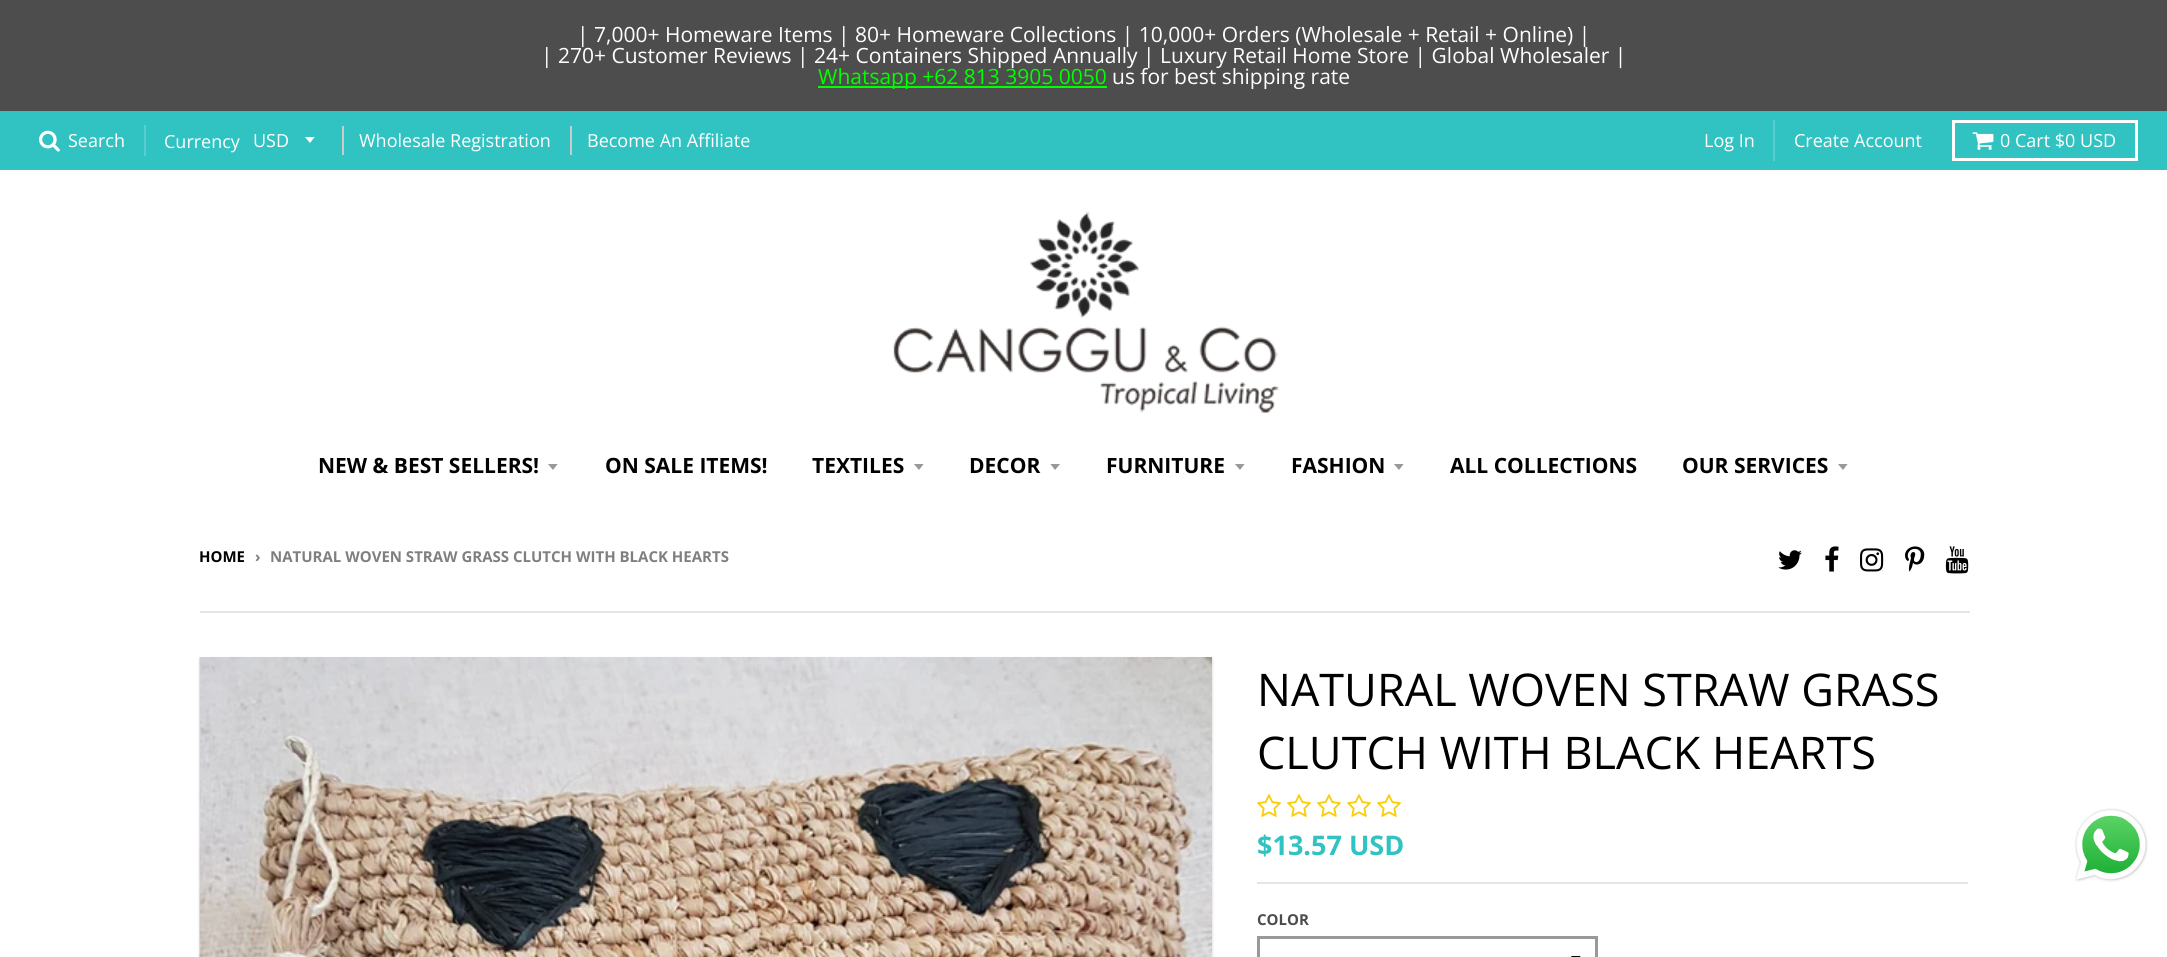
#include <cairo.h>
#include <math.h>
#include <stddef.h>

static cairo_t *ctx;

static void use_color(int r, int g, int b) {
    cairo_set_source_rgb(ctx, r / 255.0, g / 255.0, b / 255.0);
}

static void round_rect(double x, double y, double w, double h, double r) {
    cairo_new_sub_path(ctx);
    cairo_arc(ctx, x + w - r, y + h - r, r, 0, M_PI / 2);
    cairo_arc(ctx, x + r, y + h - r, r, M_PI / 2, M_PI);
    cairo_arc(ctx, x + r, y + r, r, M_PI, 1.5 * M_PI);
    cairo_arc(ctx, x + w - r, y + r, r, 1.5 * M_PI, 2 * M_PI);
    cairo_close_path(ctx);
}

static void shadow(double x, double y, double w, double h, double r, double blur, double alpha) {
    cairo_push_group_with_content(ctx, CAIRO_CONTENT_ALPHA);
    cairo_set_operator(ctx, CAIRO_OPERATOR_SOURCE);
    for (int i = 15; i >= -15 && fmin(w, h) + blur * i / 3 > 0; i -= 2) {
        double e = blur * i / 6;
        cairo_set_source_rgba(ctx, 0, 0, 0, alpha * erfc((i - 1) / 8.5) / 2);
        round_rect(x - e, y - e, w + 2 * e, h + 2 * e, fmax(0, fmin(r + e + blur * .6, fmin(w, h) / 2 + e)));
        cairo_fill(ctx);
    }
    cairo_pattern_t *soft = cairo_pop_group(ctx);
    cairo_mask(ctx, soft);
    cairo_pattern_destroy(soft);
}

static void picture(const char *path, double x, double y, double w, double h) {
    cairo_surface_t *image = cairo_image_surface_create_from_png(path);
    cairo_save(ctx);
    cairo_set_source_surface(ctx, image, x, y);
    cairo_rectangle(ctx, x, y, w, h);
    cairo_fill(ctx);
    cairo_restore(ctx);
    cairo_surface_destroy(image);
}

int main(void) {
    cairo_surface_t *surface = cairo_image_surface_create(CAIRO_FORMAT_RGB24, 2167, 957);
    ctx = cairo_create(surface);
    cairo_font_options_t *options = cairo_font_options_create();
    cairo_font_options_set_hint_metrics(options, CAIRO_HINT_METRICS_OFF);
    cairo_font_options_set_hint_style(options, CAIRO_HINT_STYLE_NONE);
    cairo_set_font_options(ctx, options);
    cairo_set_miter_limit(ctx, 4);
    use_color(255, 255, 255);
    cairo_paint(ctx);
    use_color(77, 77, 77);
    cairo_rectangle(ctx, 0, 0, 2167, 111);
    cairo_fill(ctx);
    cairo_select_font_face(ctx, "Open Sans", CAIRO_FONT_SLANT_NORMAL, CAIRO_FONT_WEIGHT_NORMAL);
    cairo_set_font_size(ctx, 21);
    use_color(255, 255, 255);
    cairo_move_to(ctx, 577, 42);
    cairo_show_text(ctx, "| 7,000+ Homeware Items | 80+ Homeware Collections | 10,000+ Orders (Wholesale + Retail + Online) |");
    cairo_move_to(ctx, 541, 63);
    cairo_show_text(ctx, "| 270+ Customer Reviews | 24+ Containers Shipped Annually | Luxury Retail Home Store | Global Wholesaler |");
    use_color(0, 255, 0);
    cairo_rectangle(ctx, 818, 86, 289, 2);
    cairo_fill(ctx);
    cairo_move_to(ctx, 818, 84);
    cairo_show_text(ctx, "Whatsapp +62 813 3905 0050");
    use_color(255, 255, 255);
    cairo_move_to(ctx, 1112, 84);
    cairo_show_text(ctx, "us for best shipping rate");
    use_color(49, 194, 194);
    cairo_rectangle(ctx, 0, 111, 2167, 59);
    cairo_fill(ctx);
    picture("img1.png", 39, 130, 21, 22);
    cairo_set_font_size(ctx, 18);
    use_color(255, 255, 255);
    cairo_move_to(ctx, 68, 147);
    cairo_show_text(ctx, "Search");
    use_color(90, 206, 206);
    cairo_rectangle(ctx, 144, 125, 2, 31);
    cairo_fill(ctx);
    use_color(255, 255, 255);
    cairo_move_to(ctx, 164, 148);
    cairo_show_text(ctx, "Currency");
    cairo_save(ctx);
    cairo_rectangle(ctx, 305, 137, 12, 7);
    cairo_clip(ctx);
    cairo_new_path(ctx);
    cairo_move_to(ctx, 304.5, 136.5);
    cairo_line_to(ctx, 310, 143);
    cairo_line_to(ctx, 315, 136.5);
    cairo_close_path(ctx);
    cairo_fill(ctx);
    cairo_restore(ctx);
    cairo_move_to(ctx, 253, 147);
    cairo_show_text(ctx, "USD");
    use_color(204, 202, 202);
    cairo_rectangle(ctx, 342, 126, 2, 29);
    cairo_fill(ctx);
    use_color(255, 255, 255);
    cairo_move_to(ctx, 359, 147);
    cairo_show_text(ctx, "Wholesale Registration");
    use_color(204, 202, 202);
    cairo_rectangle(ctx, 570, 126, 2, 29);
    cairo_fill(ctx);
    use_color(255, 255, 255);
    cairo_move_to(ctx, 587, 147);
    cairo_show_text(ctx, "Become An Affiliate");
    use_color(90, 206, 206);
    cairo_rectangle(ctx, 1773, 120, 2, 41);
    cairo_fill(ctx);
    use_color(255, 255, 255);
    cairo_move_to(ctx, 1704, 147);
    cairo_show_text(ctx, "Log In");
    cairo_move_to(ctx, 1794, 147);
    cairo_show_text(ctx, "Create Account");
    cairo_rectangle(ctx, 1953.5, 121.5, 183, 38);
    cairo_set_line_width(ctx, 3);
    cairo_stroke(ctx);
    picture("img2.png", 1972, 132, 22, 18);
    cairo_move_to(ctx, 2000, 147);
    cairo_show_text(ctx, "0 Cart $0 USD");
    picture("img3.png", 893, 211, 386, 202);
    cairo_select_font_face(ctx, "Open Sans", CAIRO_FONT_SLANT_NORMAL, CAIRO_FONT_WEIGHT_BOLD);
    cairo_set_font_size(ctx, 21);
    use_color(0, 0, 0);
    cairo_move_to(ctx, 318, 473);
    cairo_show_text(ctx, "NEW & BEST SELLERS!");
    cairo_save(ctx);
    cairo_rectangle(ctx, 548, 464, 12, 7);
    cairo_clip(ctx);
    use_color(153, 153, 153);
    cairo_new_path(ctx);
    cairo_move_to(ctx, 547.5, 463.5);
    cairo_line_to(ctx, 553, 470);
    cairo_line_to(ctx, 558, 463.5);
    cairo_close_path(ctx);
    cairo_fill(ctx);
    cairo_restore(ctx);
    cairo_move_to(ctx, 605, 473);
    cairo_show_text(ctx, "ON SALE ITEMS!");
    cairo_move_to(ctx, 812, 473);
    cairo_show_text(ctx, "TEXTILES");
    cairo_save(ctx);
    cairo_rectangle(ctx, 914, 464, 12, 7);
    cairo_clip(ctx);
    use_color(153, 153, 153);
    cairo_new_path(ctx);
    cairo_move_to(ctx, 913.5, 463.5);
    cairo_line_to(ctx, 919, 470);
    cairo_line_to(ctx, 924, 463.5);
    cairo_close_path(ctx);
    cairo_fill(ctx);
    cairo_restore(ctx);
    cairo_move_to(ctx, 969, 473);
    cairo_show_text(ctx, "DECOR");
    cairo_save(ctx);
    cairo_rectangle(ctx, 1050, 464, 12, 7);
    cairo_clip(ctx);
    use_color(153, 153, 153);
    cairo_new_path(ctx);
    cairo_move_to(ctx, 1050, 463.5);
    cairo_line_to(ctx, 1055, 470);
    cairo_line_to(ctx, 1060.5, 463.5);
    cairo_close_path(ctx);
    cairo_fill(ctx);
    cairo_restore(ctx);
    cairo_move_to(ctx, 1106, 473);
    cairo_show_text(ctx, "FURNITURE");
    cairo_save(ctx);
    cairo_rectangle(ctx, 1235, 464, 12, 7);
    cairo_clip(ctx);
    use_color(153, 153, 153);
    cairo_new_path(ctx);
    cairo_move_to(ctx, 1234.5, 463.5);
    cairo_line_to(ctx, 1240, 470);
    cairo_line_to(ctx, 1245, 463.5);
    cairo_close_path(ctx);
    cairo_fill(ctx);
    cairo_restore(ctx);
    cairo_move_to(ctx, 1291, 473);
    cairo_show_text(ctx, "FASHION");
    cairo_save(ctx);
    cairo_rectangle(ctx, 1394, 464, 12, 7);
    cairo_clip(ctx);
    use_color(153, 153, 153);
    cairo_new_path(ctx);
    cairo_move_to(ctx, 1393.5, 463.5);
    cairo_line_to(ctx, 1399, 470);
    cairo_line_to(ctx, 1404, 463.5);
    cairo_close_path(ctx);
    cairo_fill(ctx);
    cairo_restore(ctx);
    cairo_move_to(ctx, 1450, 473);
    cairo_show_text(ctx, "ALL COLLECTIONS");
    cairo_move_to(ctx, 1682, 473);
    cairo_show_text(ctx, "OUR SERVICES");
    cairo_save(ctx);
    cairo_rectangle(ctx, 1838, 464, 12, 7);
    cairo_clip(ctx);
    use_color(153, 153, 153);
    cairo_new_path(ctx);
    cairo_move_to(ctx, 1837.5, 463.5);
    cairo_line_to(ctx, 1843, 470);
    cairo_line_to(ctx, 1848, 463.5);
    cairo_close_path(ctx);
    cairo_fill(ctx);
    cairo_restore(ctx);
    cairo_set_font_size(ctx, 15);
    cairo_move_to(ctx, 199, 562);
    cairo_show_text(ctx, "HOME");
    use_color(127, 127, 127);
    cairo_move_to(ctx, 255, 562);
    cairo_show_text(ctx, "›");
    cairo_move_to(ctx, 270, 562);
    cairo_show_text(ctx, "NATURAL WOVEN STRAW GRASS CLUTCH WITH BLACK HEARTS");
    picture("img4.png", 1778, 550, 24, 20);
    picture("img5.png", 1825, 546, 14, 26);
    picture("img6.png", 1860, 548, 24, 24);
    picture("img7.png", 1905, 546, 20, 26);
    picture("img8.png", 1945, 546, 24, 28);
    use_color(229, 229, 229);
    cairo_rectangle(ctx, 200, 611, 1770, 2);
    cairo_fill(ctx);
    use_color(0, 0, 0);
    shadow(200, 659, 1012, 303, 0, 1.5, 0.2);
    picture("img9.png", 199, 657, 1013, 300);
    cairo_select_font_face(ctx, "Open Sans", CAIRO_FONT_SLANT_NORMAL, CAIRO_FONT_WEIGHT_NORMAL);
    cairo_set_font_size(ctx, 45);
    use_color(0, 0, 0);
    cairo_move_to(ctx, 1257, 706);
    cairo_show_text(ctx, "NATURAL WOVEN STRAW GRASS");
    cairo_move_to(ctx, 1257, 769);
    cairo_show_text(ctx, "CLUTCH WITH BLACK HEARTS");
    picture("img10.png", 1257, 794, 24, 23);
    picture("img10.png", 1287, 794, 24, 23);
    picture("img10.png", 1317, 794, 24, 23);
    picture("img10.png", 1347, 794, 24, 23);
    picture("img10.png", 1377, 794, 24, 23);
    use_color(229, 229, 229);
    cairo_rectangle(ctx, 1257, 882, 711, 2);
    cairo_fill(ctx);
    cairo_select_font_face(ctx, "Open Sans", CAIRO_FONT_SLANT_NORMAL, CAIRO_FONT_WEIGHT_BOLD);
    cairo_set_font_size(ctx, 27);
    use_color(49, 194, 194);
    cairo_move_to(ctx, 1257, 855);
    cairo_show_text(ctx, "$13.57 USD");
    cairo_set_font_size(ctx, 15);
    use_color(76, 76, 76);
    cairo_move_to(ctx, 1257, 925);
    cairo_show_text(ctx, "COLOR");
    cairo_save(ctx);
    cairo_rectangle(ctx, 1571, 956, 12, 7);
    cairo_clip(ctx);
    use_color(0, 0, 0);
    cairo_new_path(ctx);
    cairo_move_to(ctx, 1570.5, 955.5);
    cairo_line_to(ctx, 1576, 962);
    cairo_line_to(ctx, 1581, 955.5);
    cairo_close_path(ctx);
    cairo_fill(ctx);
    cairo_restore(ctx);
    cairo_rectangle(ctx, 1258.5, 937.5, 338, 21);
    use_color(153, 153, 153);
    cairo_stroke(ctx);
    picture("img11.png", 2074, 808, 74, 74);
    cairo_surface_write_to_png(surface, "result.png");
    cairo_font_options_destroy(options);
    cairo_destroy(ctx);
    cairo_surface_destroy(surface);
    return 0;
}
